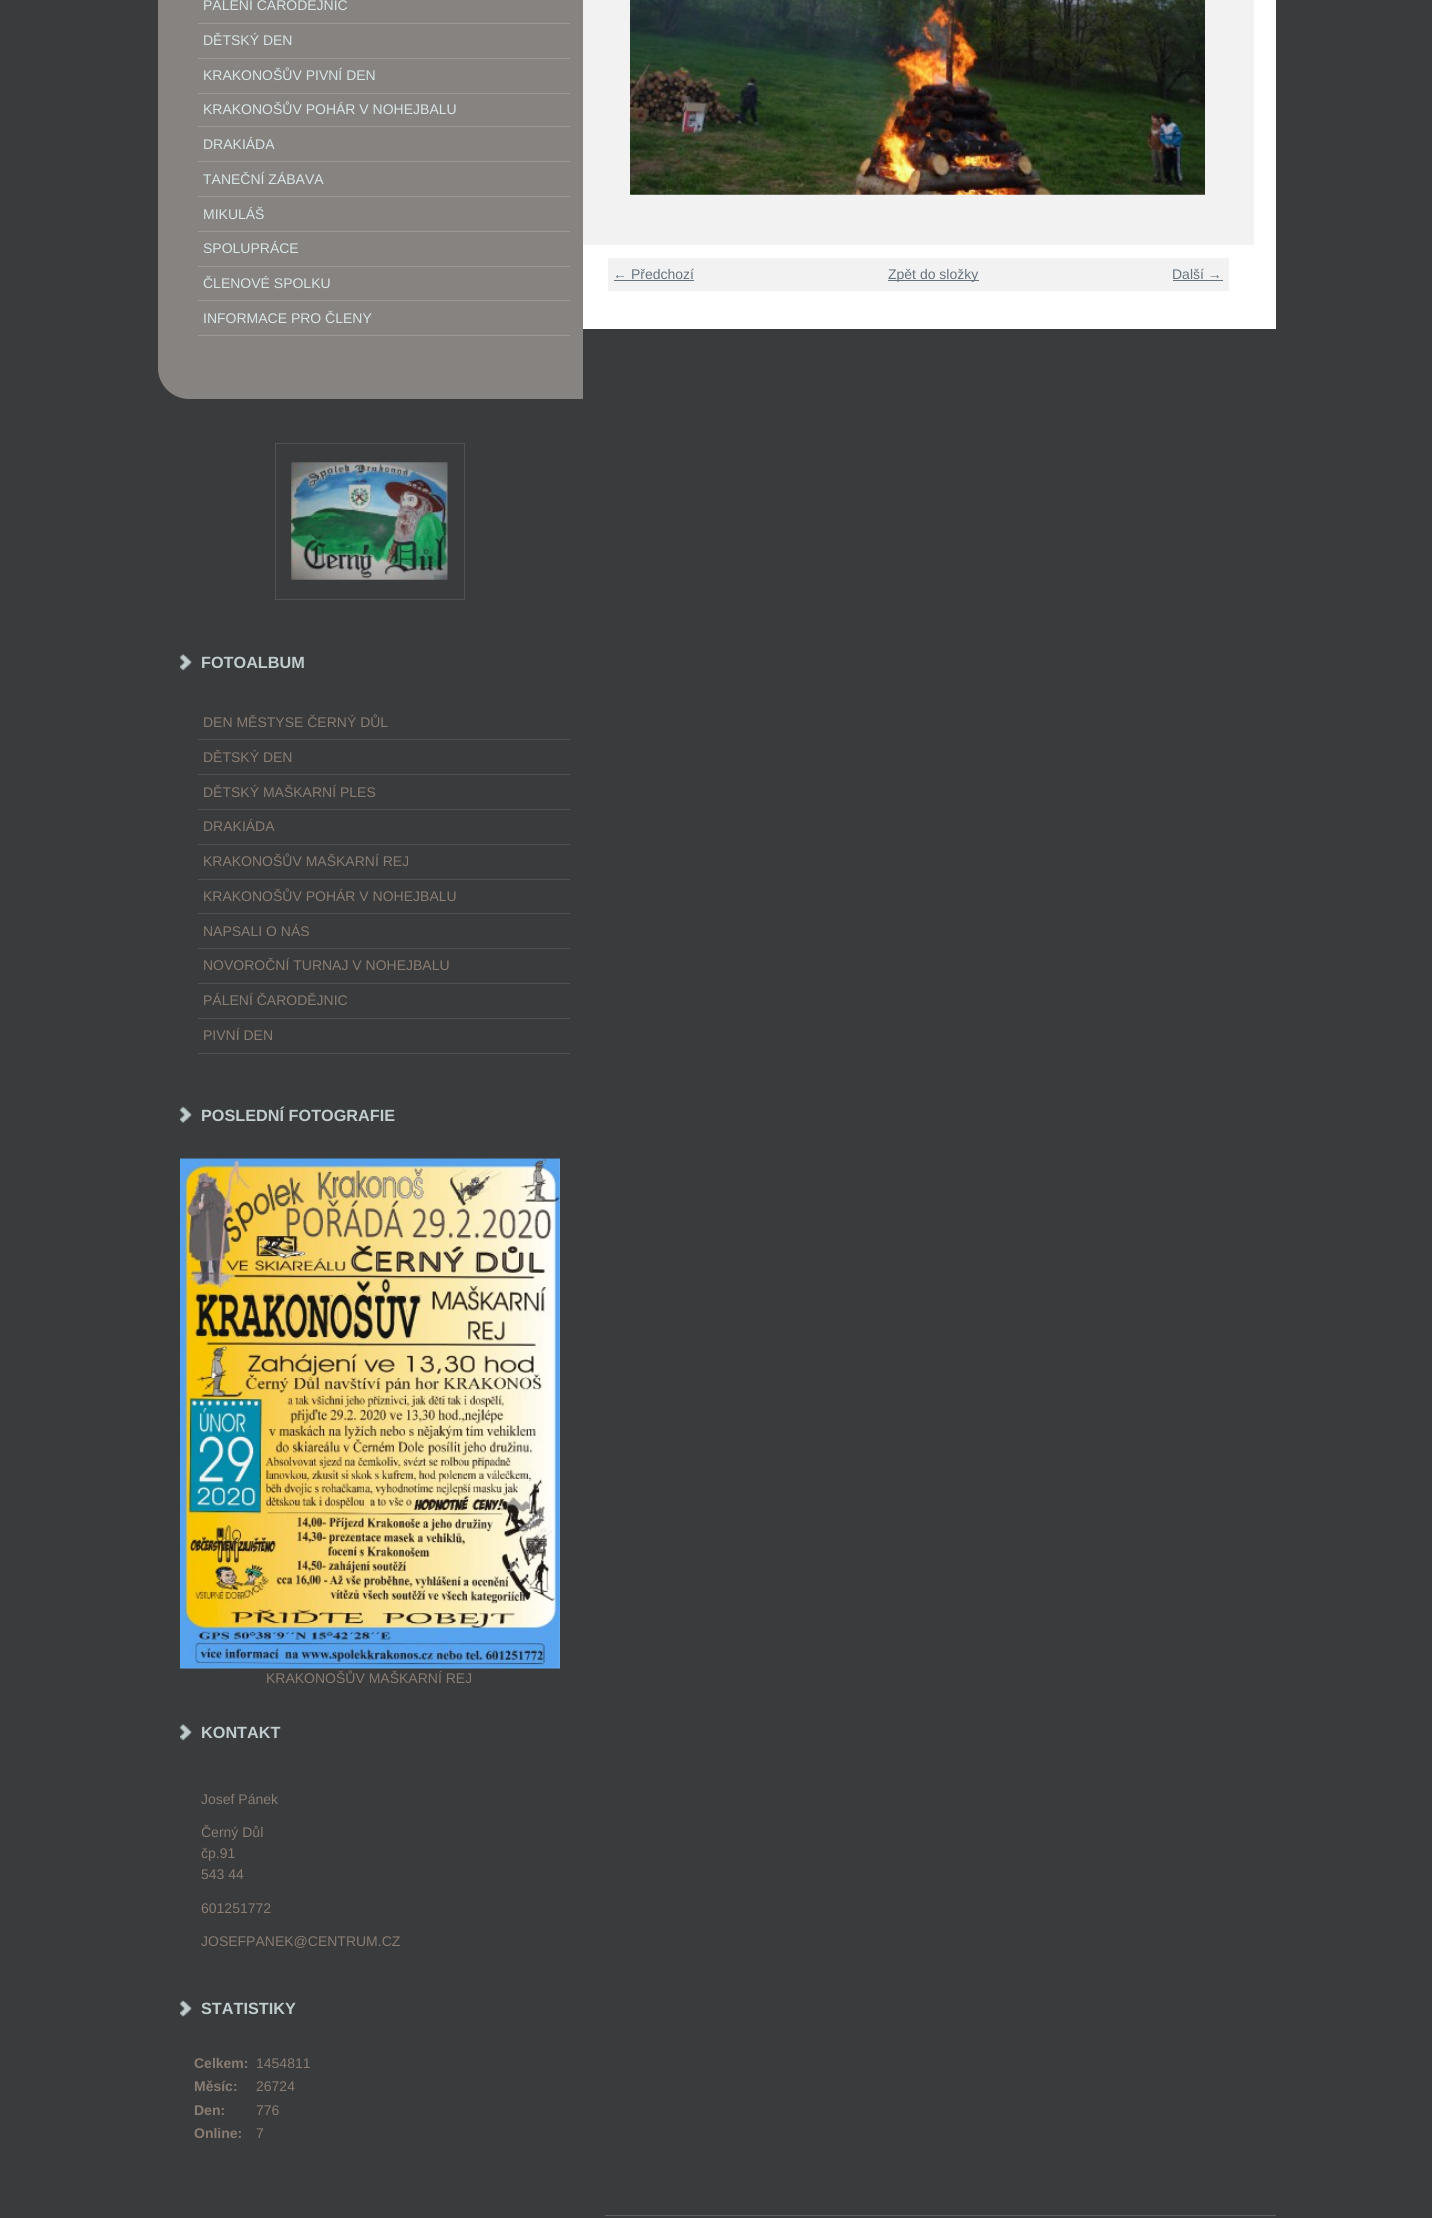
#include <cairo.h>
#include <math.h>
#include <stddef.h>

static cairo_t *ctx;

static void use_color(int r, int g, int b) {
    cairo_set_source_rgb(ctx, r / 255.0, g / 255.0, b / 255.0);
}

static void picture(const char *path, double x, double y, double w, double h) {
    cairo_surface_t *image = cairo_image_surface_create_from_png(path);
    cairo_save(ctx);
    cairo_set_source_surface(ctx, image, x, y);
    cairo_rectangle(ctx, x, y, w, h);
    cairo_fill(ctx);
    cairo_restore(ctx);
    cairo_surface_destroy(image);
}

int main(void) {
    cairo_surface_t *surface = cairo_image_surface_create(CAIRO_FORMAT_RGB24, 1432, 2218);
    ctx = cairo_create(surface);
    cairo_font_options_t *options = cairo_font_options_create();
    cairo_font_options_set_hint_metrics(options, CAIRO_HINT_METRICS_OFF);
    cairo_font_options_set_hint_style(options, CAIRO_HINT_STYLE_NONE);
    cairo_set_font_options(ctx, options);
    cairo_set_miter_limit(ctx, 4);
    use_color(57, 59, 61);
    cairo_paint(ctx);
    use_color(135, 131, 129);
    cairo_new_path(ctx);
    cairo_move_to(ctx, 158, -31);
    cairo_line_to(ctx, 583, -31);
    cairo_line_to(ctx, 583, 399);
    cairo_line_to(ctx, 189, 399);
    cairo_curve_to(ctx, 172, 399, 158, 385, 158, 368);
    cairo_close_path(ctx);
    cairo_fill(ctx);
    use_color(155, 153, 152);
    cairo_rectangle(ctx, 198, 23, 372, 1);
    cairo_fill(ctx);
    cairo_select_font_face(ctx, "Liberation Sans", CAIRO_FONT_SLANT_NORMAL, CAIRO_FONT_WEIGHT_NORMAL);
    cairo_set_font_size(ctx, 14);
    use_color(215, 229, 231);
    cairo_move_to(ctx, 203, 10);
    cairo_show_text(ctx, "PÁLENÍ ČARODĚJNIC");
    use_color(155, 153, 152);
    cairo_rectangle(ctx, 198, 58, 372, 1);
    cairo_fill(ctx);
    use_color(215, 229, 231);
    cairo_move_to(ctx, 203, 45);
    cairo_show_text(ctx, "DĚTSKÝ DEN");
    use_color(155, 153, 152);
    cairo_rectangle(ctx, 198, 93, 372, 1);
    cairo_fill(ctx);
    use_color(215, 229, 231);
    cairo_move_to(ctx, 203, 80);
    cairo_show_text(ctx, "KRAKONOŠŮV PIVNÍ DEN");
    use_color(155, 153, 152);
    cairo_rectangle(ctx, 198, 126, 372, 1);
    cairo_fill(ctx);
    use_color(215, 229, 231);
    cairo_move_to(ctx, 203, 114);
    cairo_show_text(ctx, "KRAKONOŠŮV POHÁR V NOHEJBALU");
    use_color(155, 153, 152);
    cairo_rectangle(ctx, 198, 161, 372, 1);
    cairo_fill(ctx);
    use_color(215, 229, 231);
    cairo_move_to(ctx, 203, 149);
    cairo_show_text(ctx, "DRAKIÁDA");
    use_color(155, 153, 152);
    cairo_rectangle(ctx, 198, 196, 372, 1);
    cairo_fill(ctx);
    use_color(215, 229, 231);
    cairo_move_to(ctx, 203, 184);
    cairo_show_text(ctx, "TANEČNÍ ZÁBAVA");
    use_color(155, 153, 152);
    cairo_rectangle(ctx, 198, 231, 372, 1);
    cairo_fill(ctx);
    use_color(215, 229, 231);
    cairo_move_to(ctx, 203, 219);
    cairo_show_text(ctx, "MIKULÁŠ");
    use_color(155, 153, 152);
    cairo_rectangle(ctx, 198, 266, 372, 1);
    cairo_fill(ctx);
    use_color(215, 229, 231);
    cairo_move_to(ctx, 203, 253);
    cairo_show_text(ctx, "SPOLUPRÁCE");
    use_color(155, 153, 152);
    cairo_rectangle(ctx, 198, 300, 372, 1);
    cairo_fill(ctx);
    use_color(215, 229, 231);
    cairo_move_to(ctx, 203, 288);
    cairo_show_text(ctx, "ČLENOVÉ SPOLKU");
    use_color(155, 153, 152);
    cairo_rectangle(ctx, 198, 335, 372, 1);
    cairo_fill(ctx);
    use_color(215, 229, 231);
    cairo_move_to(ctx, 203, 323);
    cairo_show_text(ctx, "INFORMACE PRO ČLENY");
    cairo_rectangle(ctx, 275.5, 443.5, 189, 156);
    use_color(79, 81, 83);
    cairo_set_line_width(ctx, 1);
    cairo_stroke(ctx);
    picture("img1.png", 291, 462, 157, 118);
    picture("img2.png", 180, 653, 12, 18);
    cairo_select_font_face(ctx, "Liberation Sans", CAIRO_FONT_SLANT_NORMAL, CAIRO_FONT_WEIGHT_BOLD);
    cairo_set_font_size(ctx, 16.25);
    use_color(192, 204, 206);
    cairo_move_to(ctx, 201, 668);
    cairo_show_text(ctx, "FOTOALBUM");
    use_color(79, 81, 83);
    cairo_rectangle(ctx, 198, 739, 372, 1);
    cairo_fill(ctx);
    cairo_select_font_face(ctx, "Liberation Sans", CAIRO_FONT_SLANT_NORMAL, CAIRO_FONT_WEIGHT_NORMAL);
    cairo_set_font_size(ctx, 14);
    use_color(137, 124, 114);
    cairo_move_to(ctx, 203, 727);
    cairo_show_text(ctx, "DEN MĚSTYSE ČERNÝ DŮL");
    use_color(79, 81, 83);
    cairo_rectangle(ctx, 198, 774, 372, 1);
    cairo_fill(ctx);
    use_color(137, 124, 114);
    cairo_move_to(ctx, 203, 762);
    cairo_show_text(ctx, "DĚTSKÝ DEN");
    use_color(79, 81, 83);
    cairo_rectangle(ctx, 198, 809, 372, 1);
    cairo_fill(ctx);
    use_color(137, 124, 114);
    cairo_move_to(ctx, 203, 797);
    cairo_show_text(ctx, "DĚTSKÝ MAŠKARNÍ PLES");
    use_color(79, 81, 83);
    cairo_rectangle(ctx, 198, 844, 372, 1);
    cairo_fill(ctx);
    use_color(137, 124, 114);
    cairo_move_to(ctx, 203, 831);
    cairo_show_text(ctx, "DRAKIÁDA");
    use_color(79, 81, 83);
    cairo_rectangle(ctx, 198, 879, 372, 1);
    cairo_fill(ctx);
    use_color(137, 124, 114);
    cairo_move_to(ctx, 203, 866);
    cairo_show_text(ctx, "KRAKONOŠŮV MAŠKARNÍ REJ");
    use_color(79, 81, 83);
    cairo_rectangle(ctx, 198, 913, 372, 1);
    cairo_fill(ctx);
    use_color(137, 124, 114);
    cairo_move_to(ctx, 203, 901);
    cairo_show_text(ctx, "KRAKONOŠŮV POHÁR V NOHEJBALU");
    use_color(79, 81, 83);
    cairo_rectangle(ctx, 198, 948, 372, 1);
    cairo_fill(ctx);
    use_color(137, 124, 114);
    cairo_move_to(ctx, 203, 936);
    cairo_show_text(ctx, "NAPSALI O NÁS");
    use_color(79, 81, 83);
    cairo_rectangle(ctx, 198, 983, 372, 1);
    cairo_fill(ctx);
    use_color(137, 124, 114);
    cairo_move_to(ctx, 203, 970);
    cairo_show_text(ctx, "NOVOROČNÍ TURNAJ V NOHEJBALU");
    use_color(79, 81, 83);
    cairo_rectangle(ctx, 198, 1018, 372, 1);
    cairo_fill(ctx);
    use_color(137, 124, 114);
    cairo_move_to(ctx, 203, 1005);
    cairo_show_text(ctx, "PÁLENÍ ČARODĚJNIC");
    use_color(79, 81, 83);
    cairo_rectangle(ctx, 198, 1053, 372, 1);
    cairo_fill(ctx);
    use_color(137, 124, 114);
    cairo_move_to(ctx, 203, 1040);
    cairo_show_text(ctx, "PIVNÍ DEN");
    picture("img3.png", 180, 1106, 12, 18);
    cairo_select_font_face(ctx, "Liberation Sans", CAIRO_FONT_SLANT_NORMAL, CAIRO_FONT_WEIGHT_BOLD);
    cairo_set_font_size(ctx, 16.25);
    use_color(192, 204, 206);
    cairo_move_to(ctx, 201, 1121);
    cairo_show_text(ctx, "POSLEDNÍ FOTOGRAFIE");
    picture("img4.png", 180, 1158, 380, 511);
    cairo_select_font_face(ctx, "Liberation Sans", CAIRO_FONT_SLANT_NORMAL, CAIRO_FONT_WEIGHT_NORMAL);
    cairo_set_font_size(ctx, 14);
    use_color(137, 124, 114);
    cairo_move_to(ctx, 266, 1683);
    cairo_show_text(ctx, "KRAKONOŠŮV MAŠKARNÍ REJ");
    picture("img2.png", 180, 1723, 12, 18);
    cairo_select_font_face(ctx, "Liberation Sans", CAIRO_FONT_SLANT_NORMAL, CAIRO_FONT_WEIGHT_BOLD);
    cairo_set_font_size(ctx, 16.25);
    use_color(192, 204, 206);
    cairo_move_to(ctx, 201, 1738);
    cairo_show_text(ctx, "KONTAKT");
    cairo_select_font_face(ctx, "Liberation Sans", CAIRO_FONT_SLANT_NORMAL, CAIRO_FONT_WEIGHT_NORMAL);
    cairo_set_font_size(ctx, 14);
    use_color(137, 124, 114);
    cairo_move_to(ctx, 201, 1804);
    cairo_show_text(ctx, "Josef Pánek");
    cairo_move_to(ctx, 201, 1837);
    cairo_show_text(ctx, "Černý Důl");
    cairo_move_to(ctx, 201, 1858);
    cairo_show_text(ctx, "čp.91");
    cairo_move_to(ctx, 201, 1879);
    cairo_show_text(ctx, "543 44");
    cairo_move_to(ctx, 201, 1913);
    cairo_show_text(ctx, "601251772");
    cairo_move_to(ctx, 201, 1946);
    cairo_show_text(ctx, "JOSEFPANEK@CENTRUM.CZ");
    picture("img5.png", 180, 2000, 12, 17);
    cairo_select_font_face(ctx, "Liberation Sans", CAIRO_FONT_SLANT_NORMAL, CAIRO_FONT_WEIGHT_BOLD);
    cairo_set_font_size(ctx, 16.25);
    use_color(192, 204, 206);
    cairo_move_to(ctx, 201, 2014);
    cairo_show_text(ctx, "STATISTIKY");
    cairo_set_font_size(ctx, 14);
    use_color(137, 124, 114);
    cairo_move_to(ctx, 194, 2068);
    cairo_show_text(ctx, "Celkem:");
    cairo_select_font_face(ctx, "Liberation Sans", CAIRO_FONT_SLANT_NORMAL, CAIRO_FONT_WEIGHT_NORMAL);
    cairo_move_to(ctx, 256, 2068);
    cairo_show_text(ctx, "1454811");
    cairo_select_font_face(ctx, "Liberation Sans", CAIRO_FONT_SLANT_NORMAL, CAIRO_FONT_WEIGHT_BOLD);
    cairo_move_to(ctx, 194, 2091);
    cairo_show_text(ctx, "Měsíc:");
    cairo_select_font_face(ctx, "Liberation Sans", CAIRO_FONT_SLANT_NORMAL, CAIRO_FONT_WEIGHT_NORMAL);
    cairo_move_to(ctx, 256, 2091);
    cairo_show_text(ctx, "26724");
    cairo_select_font_face(ctx, "Liberation Sans", CAIRO_FONT_SLANT_NORMAL, CAIRO_FONT_WEIGHT_BOLD);
    cairo_move_to(ctx, 194, 2115);
    cairo_show_text(ctx, "Den:");
    cairo_select_font_face(ctx, "Liberation Sans", CAIRO_FONT_SLANT_NORMAL, CAIRO_FONT_WEIGHT_NORMAL);
    cairo_move_to(ctx, 256, 2115);
    cairo_show_text(ctx, "776");
    cairo_select_font_face(ctx, "Liberation Sans", CAIRO_FONT_SLANT_NORMAL, CAIRO_FONT_WEIGHT_BOLD);
    cairo_move_to(ctx, 194, 2138);
    cairo_show_text(ctx, "Online:");
    cairo_select_font_face(ctx, "Liberation Sans", CAIRO_FONT_SLANT_NORMAL, CAIRO_FONT_WEIGHT_NORMAL);
    cairo_move_to(ctx, 256, 2138);
    cairo_show_text(ctx, "7");
    use_color(255, 255, 255);
    cairo_rectangle(ctx, 583, 0, 693, 329);
    cairo_fill(ctx);
    use_color(242, 242, 242);
    cairo_rectangle(ctx, 583, 0, 671, 245);
    cairo_fill(ctx);
    picture("img6.png", 630, 0, 575, 195);
    cairo_rectangle(ctx, 608, 258, 621, 33);
    cairo_fill(ctx);
    use_color(101, 115, 127);
    cairo_move_to(ctx, 613, 279);
    cairo_show_text(ctx, "← Předchozí");
    cairo_rectangle(ctx, 614, 280, 80, 1);
    cairo_fill(ctx);
    cairo_rectangle(ctx, 888, 280, 91, 1);
    cairo_fill(ctx);
    cairo_move_to(ctx, 888, 279);
    cairo_show_text(ctx, "Zpět do složky");
    cairo_move_to(ctx, 1172, 279);
    cairo_show_text(ctx, "Další →");
    cairo_rectangle(ctx, 1173, 280, 50, 1);
    cairo_fill(ctx);
    use_color(95, 95, 95);
    cairo_rectangle(ctx, 605, 2215, 671, 1);
    cairo_fill(ctx);
    cairo_surface_write_to_png(surface, "result.png");
    cairo_font_options_destroy(options);
    cairo_destroy(ctx);
    cairo_surface_destroy(surface);
    return 0;
}
